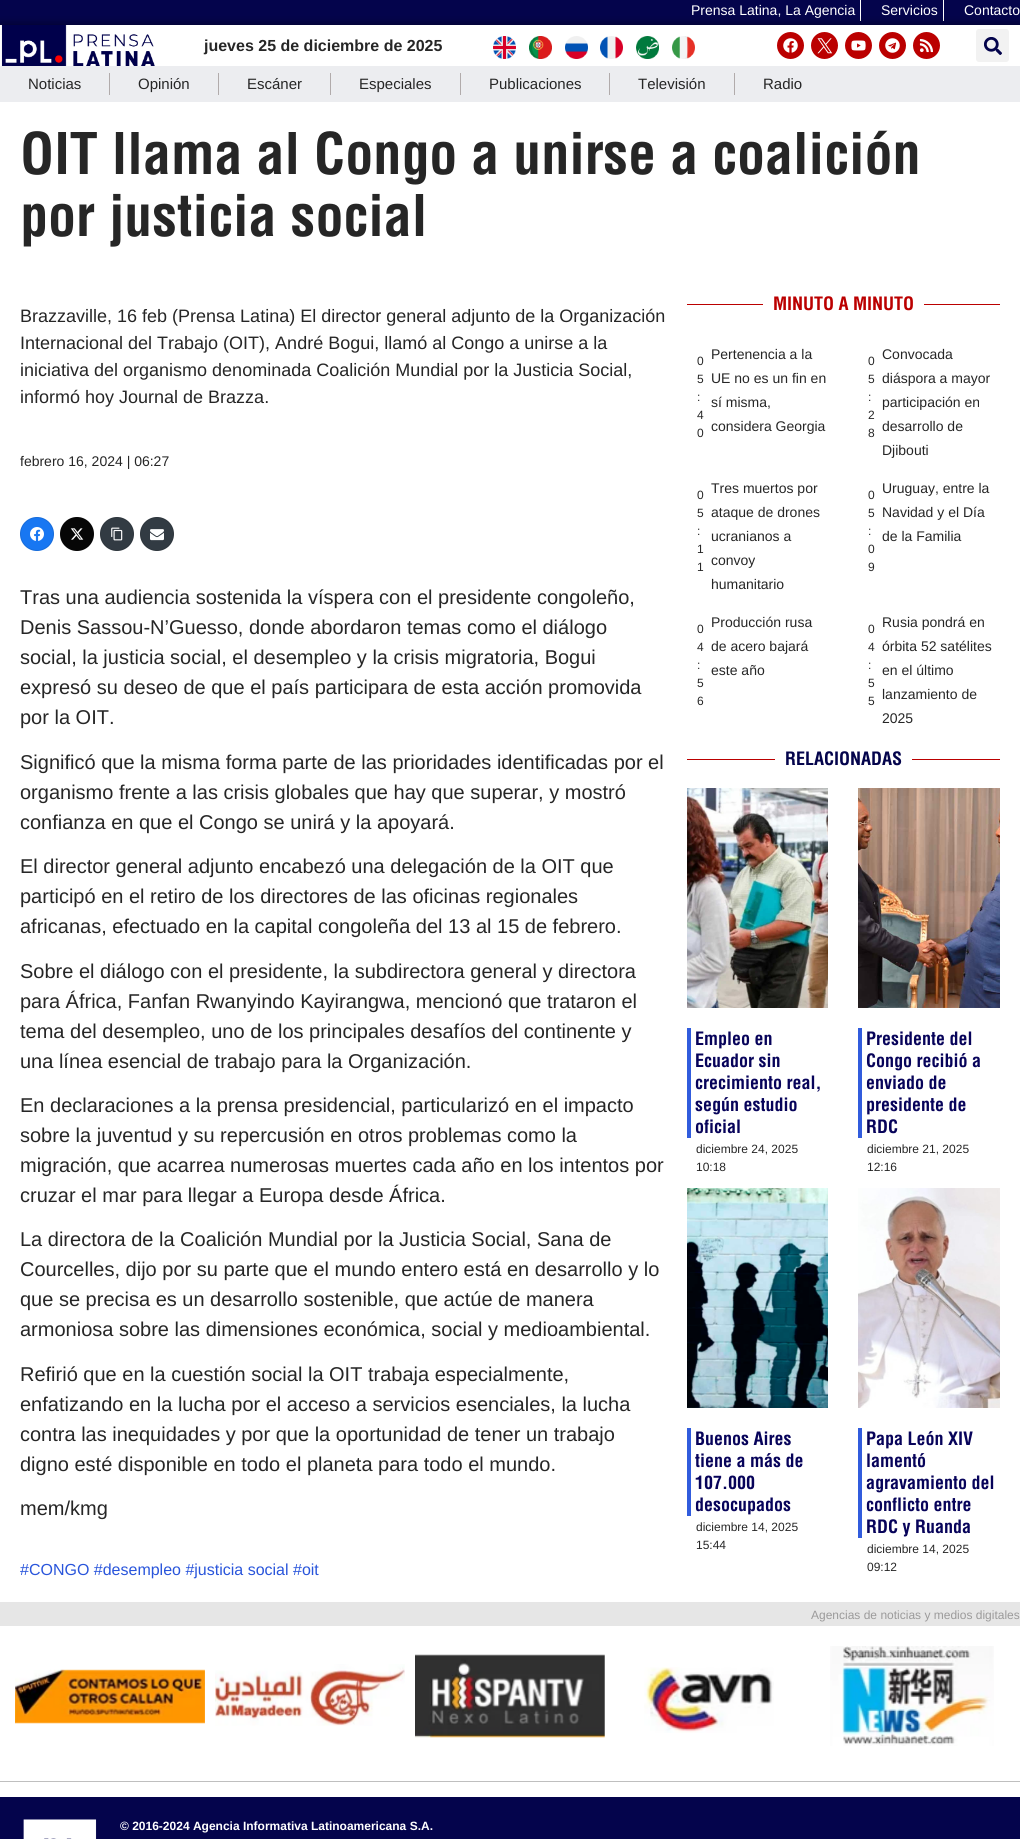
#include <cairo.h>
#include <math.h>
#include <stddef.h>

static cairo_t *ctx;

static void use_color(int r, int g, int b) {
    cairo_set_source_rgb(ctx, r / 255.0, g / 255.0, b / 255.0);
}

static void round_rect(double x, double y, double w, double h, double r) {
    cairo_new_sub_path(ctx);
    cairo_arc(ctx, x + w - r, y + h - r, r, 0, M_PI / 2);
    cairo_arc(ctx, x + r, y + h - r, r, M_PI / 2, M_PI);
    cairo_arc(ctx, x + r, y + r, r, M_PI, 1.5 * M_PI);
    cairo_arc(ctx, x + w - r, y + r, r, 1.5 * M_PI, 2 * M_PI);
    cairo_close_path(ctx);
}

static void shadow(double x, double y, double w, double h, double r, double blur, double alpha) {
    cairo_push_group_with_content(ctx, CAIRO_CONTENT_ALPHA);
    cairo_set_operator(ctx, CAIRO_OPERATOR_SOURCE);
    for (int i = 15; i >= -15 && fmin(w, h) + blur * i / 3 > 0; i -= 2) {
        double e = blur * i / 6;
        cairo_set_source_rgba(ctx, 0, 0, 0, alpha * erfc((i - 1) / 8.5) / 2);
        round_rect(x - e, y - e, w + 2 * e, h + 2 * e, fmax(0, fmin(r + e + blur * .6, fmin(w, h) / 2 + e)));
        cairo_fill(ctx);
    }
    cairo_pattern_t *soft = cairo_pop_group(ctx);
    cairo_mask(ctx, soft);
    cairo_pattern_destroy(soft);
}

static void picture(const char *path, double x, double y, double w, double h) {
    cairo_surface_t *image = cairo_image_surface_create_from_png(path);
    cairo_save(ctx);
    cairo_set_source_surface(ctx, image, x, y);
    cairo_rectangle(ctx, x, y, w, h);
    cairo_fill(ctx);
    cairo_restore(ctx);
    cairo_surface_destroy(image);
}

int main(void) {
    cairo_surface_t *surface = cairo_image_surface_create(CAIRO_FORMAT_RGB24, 1020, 1839);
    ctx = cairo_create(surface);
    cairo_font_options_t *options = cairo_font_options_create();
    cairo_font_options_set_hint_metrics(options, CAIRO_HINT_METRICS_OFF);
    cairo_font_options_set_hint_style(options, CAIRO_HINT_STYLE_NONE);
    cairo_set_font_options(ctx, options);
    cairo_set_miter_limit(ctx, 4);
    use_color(255, 255, 255);
    cairo_paint(ctx);
    use_color(4, 4, 76);
    cairo_rectangle(ctx, 0, 0, 1020, 25);
    cairo_fill(ctx);
    use_color(255, 255, 255);
    cairo_rectangle(ctx, 860, 0, 1, 21);
    cairo_fill(ctx);
    cairo_select_font_face(ctx, "Liberation Sans", CAIRO_FONT_SLANT_NORMAL, CAIRO_FONT_WEIGHT_NORMAL);
    cairo_set_font_size(ctx, 14);
    cairo_move_to(ctx, 691, 15);
    cairo_show_text(ctx, "Prensa Latina, La Agencia");
    cairo_rectangle(ctx, 943, 0, 1, 21);
    cairo_fill(ctx);
    cairo_move_to(ctx, 881, 15);
    cairo_show_text(ctx, "Servicios");
    cairo_move_to(ctx, 964, 15);
    cairo_show_text(ctx, "Contacto");
    cairo_save(ctx);
    cairo_rectangle(ctx, 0, 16, 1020, 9);
    cairo_clip(ctx);
    use_color(0, 0, 0);
    shadow(0, 25, 1020, 41, 0, 5, 0.5);
    cairo_restore(ctx);
    picture("img1.png", 1, 25, 154, 41);
    cairo_select_font_face(ctx, "Liberation Sans", CAIRO_FONT_SLANT_NORMAL, CAIRO_FONT_WEIGHT_BOLD);
    cairo_set_font_size(ctx, 16);
    use_color(38, 38, 38);
    cairo_move_to(ctx, 204, 51);
    cairo_show_text(ctx, "jueves 25 de diciembre de 2025");
    picture("img2.png", 493, 36, 23, 23);
    picture("img3.png", 529, 36, 23, 23);
    picture("img4.png", 565, 36, 23, 23);
    picture("img5.png", 600, 36, 23, 23);
    picture("img6.png", 636, 36, 23, 23);
    picture("img7.png", 672, 36, 23, 23);
    use_color(187, 0, 0);
    cairo_arc(ctx, 790.5, 45.5, 13.5, 0, 2 * M_PI);
    cairo_fill(ctx);
    picture("img8.png", 783, 38, 15, 15);
    cairo_arc(ctx, 824.5, 45.5, 13.5, 0, 2 * M_PI);
    cairo_fill(ctx);
    picture("img9.png", 817, 38, 16, 16);
    cairo_arc(ctx, 858.5, 45.5, 13.5, 0, 2 * M_PI);
    cairo_fill(ctx);
    picture("img10.png", 851, 40, 15, 11);
    cairo_arc(ctx, 892.5, 45.5, 13.5, 0, 2 * M_PI);
    cairo_fill(ctx);
    picture("img11.png", 885, 38, 15, 15);
    cairo_arc(ctx, 926.5, 45.5, 13.5, 0, 2 * M_PI);
    cairo_fill(ctx);
    picture("img12.png", 919, 39, 14, 14);
    use_color(242, 242, 242);
    round_rect(976, 29, 33, 33, 3);
    cairo_fill(ctx);
    picture("img13.png", 984, 37, 18, 18);
    use_color(236, 237, 240);
    cairo_rectangle(ctx, 0, 66, 1020, 36);
    cairo_fill(ctx);
    cairo_select_font_face(ctx, "Liberation Sans", CAIRO_FONT_SLANT_NORMAL, CAIRO_FONT_WEIGHT_NORMAL);
    cairo_set_font_size(ctx, 15);
    use_color(38, 38, 38);
    cairo_move_to(ctx, 28, 89);
    cairo_show_text(ctx, "Noticias");
    use_color(177, 171, 171);
    cairo_rectangle(ctx, 109, 73, 1, 22);
    cairo_fill(ctx);
    use_color(38, 38, 38);
    cairo_move_to(ctx, 138, 89);
    cairo_show_text(ctx, "Opinión");
    use_color(177, 171, 171);
    cairo_rectangle(ctx, 218, 73, 1, 22);
    cairo_fill(ctx);
    use_color(38, 38, 38);
    cairo_move_to(ctx, 247, 89);
    cairo_show_text(ctx, "Escáner");
    use_color(177, 171, 171);
    cairo_rectangle(ctx, 330, 73, 1, 22);
    cairo_fill(ctx);
    use_color(38, 38, 38);
    cairo_move_to(ctx, 359, 89);
    cairo_show_text(ctx, "Especiales");
    use_color(177, 171, 171);
    cairo_rectangle(ctx, 460, 73, 1, 22);
    cairo_fill(ctx);
    use_color(38, 38, 38);
    cairo_move_to(ctx, 489, 89);
    cairo_show_text(ctx, "Publicaciones");
    use_color(177, 171, 171);
    cairo_rectangle(ctx, 609, 73, 1, 22);
    cairo_fill(ctx);
    use_color(38, 38, 38);
    cairo_move_to(ctx, 638, 89);
    cairo_show_text(ctx, "Televisión");
    use_color(177, 171, 171);
    cairo_rectangle(ctx, 734, 73, 1, 22);
    cairo_fill(ctx);
    use_color(38, 38, 38);
    cairo_move_to(ctx, 763, 89);
    cairo_show_text(ctx, "Radio");
    cairo_select_font_face(ctx, "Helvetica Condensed", CAIRO_FONT_SLANT_NORMAL, CAIRO_FONT_WEIGHT_BOLD);
    cairo_set_font_size(ctx, 56);
    cairo_move_to(ctx, 20, 174);
    cairo_show_text(ctx, "OIT llama al Congo a unirse a coalición");
    cairo_move_to(ctx, 20, 236);
    cairo_show_text(ctx, "por justicia social");
    cairo_select_font_face(ctx, "Liberation Sans", CAIRO_FONT_SLANT_NORMAL, CAIRO_FONT_WEIGHT_NORMAL);
    cairo_set_font_size(ctx, 18);
    cairo_move_to(ctx, 20, 322);
    cairo_show_text(ctx, "Brazzaville, 16 feb (Prensa Latina) El director general adjunto de la Organización");
    cairo_move_to(ctx, 20, 349);
    cairo_show_text(ctx, "Internacional del Trabajo (OIT), André Bogui, llamó al Congo a unirse a la");
    cairo_move_to(ctx, 20, 376);
    cairo_show_text(ctx, "iniciativa del organismo denominada Coalición Mundial por la Justicia Social,");
    cairo_move_to(ctx, 20, 403);
    cairo_show_text(ctx, "informó hoy Journal de Brazza.");
    cairo_set_font_size(ctx, 14);
    cairo_move_to(ctx, 20, 466);
    cairo_show_text(ctx, "febrero 16, 2024 | 06:27");
    use_color(24, 119, 242);
    cairo_new_path(ctx);
    cairo_arc(ctx, 37, 534, 17, 0, 2 * M_PI);
    cairo_fill(ctx);
    cairo_arc(ctx, 37, 534, 16.5, 0, 2 * M_PI);
    cairo_set_source_rgba(ctx, 0, 0, 0, 0.1);
    cairo_set_line_width(ctx, 1);
    cairo_stroke(ctx);
    picture("img14.png", 30, 527, 14, 14);
    use_color(6, 6, 6);
    cairo_arc(ctx, 77, 534, 17, 0, 2 * M_PI);
    cairo_fill(ctx);
    cairo_arc(ctx, 77, 534, 16.5, 0, 2 * M_PI);
    cairo_set_source_rgba(ctx, 0, 0, 0, 0.1);
    cairo_stroke(ctx);
    picture("img15.png", 70, 528, 14, 12);
    use_color(50, 59, 67);
    cairo_arc(ctx, 117, 534, 17, 0, 2 * M_PI);
    cairo_fill(ctx);
    cairo_arc(ctx, 117, 534, 16.5, 0, 2 * M_PI);
    cairo_set_source_rgba(ctx, 0, 0, 0, 0.1);
    cairo_stroke(ctx);
    picture("img16.png", 111, 527, 12, 14);
    use_color(50, 59, 67);
    cairo_arc(ctx, 157, 534, 17, 0, 2 * M_PI);
    cairo_fill(ctx);
    cairo_arc(ctx, 157, 534, 16.5, 0, 2 * M_PI);
    cairo_set_source_rgba(ctx, 0, 0, 0, 0.1);
    cairo_stroke(ctx);
    picture("img17.png", 150, 529, 14, 12);
    cairo_set_font_size(ctx, 20);
    use_color(38, 38, 38);
    cairo_move_to(ctx, 20, 604);
    cairo_show_text(ctx, "Tras una audiencia sostenida la víspera con el presidente congoleño,");
    cairo_move_to(ctx, 20, 634);
    cairo_show_text(ctx, "Denis Sassou-N’Guesso, donde abordaron temas como el diálogo");
    cairo_move_to(ctx, 20, 664);
    cairo_show_text(ctx, "social, la justicia social, el desempleo y la crisis migratoria, Bogui");
    cairo_move_to(ctx, 20, 694);
    cairo_show_text(ctx, "expresó su deseo de que el país participara de esta acción promovida");
    cairo_move_to(ctx, 20, 724);
    cairo_show_text(ctx, "por la OIT.");
    cairo_move_to(ctx, 20, 769);
    cairo_show_text(ctx, "Significó que la misma forma parte de las prioridades identificadas por el");
    cairo_move_to(ctx, 20, 799);
    cairo_show_text(ctx, "organismo frente a las crisis globales que hay que superar, y mostró");
    cairo_move_to(ctx, 20, 829);
    cairo_show_text(ctx, "confianza en que el Congo se unirá y la apoyará.");
    cairo_move_to(ctx, 20, 873);
    cairo_show_text(ctx, "El director general adjunto encabezó una delegación de la OIT que");
    cairo_move_to(ctx, 20, 903);
    cairo_show_text(ctx, "participó en el retiro de los directores de las oficinas regionales");
    cairo_move_to(ctx, 20, 933);
    cairo_show_text(ctx, "africanas, efectuado en la capital congoleña del 13 al 15 de febrero.");
    cairo_move_to(ctx, 20, 978);
    cairo_show_text(ctx, "Sobre el diálogo con el presidente, la subdirectora general y directora");
    cairo_move_to(ctx, 20, 1008);
    cairo_show_text(ctx, "para África, Fanfan Rwanyindo Kayirangwa, mencionó que trataron el");
    cairo_move_to(ctx, 20, 1038);
    cairo_show_text(ctx, "tema del desempleo, uno de los principales desafíos del continente y");
    cairo_move_to(ctx, 20, 1068);
    cairo_show_text(ctx, "una línea esencial de trabajo para la Organización.");
    cairo_move_to(ctx, 20, 1112);
    cairo_show_text(ctx, "En declaraciones a la prensa presidencial, particularizó en el impacto");
    cairo_move_to(ctx, 20, 1142);
    cairo_show_text(ctx, "sobre la juventud y su repercusión en otros problemas como la");
    cairo_move_to(ctx, 20, 1172);
    cairo_show_text(ctx, "migración, que acarrea numerosas muertes cada año en los intentos por");
    cairo_move_to(ctx, 20, 1202);
    cairo_show_text(ctx, "cruzar el mar para llegar a Europa desde África.");
    cairo_move_to(ctx, 20, 1246);
    cairo_show_text(ctx, "La directora de la Coalición Mundial por la Justicia Social, Sana de");
    cairo_move_to(ctx, 20, 1276);
    cairo_show_text(ctx, "Courcelles, dijo por su parte que el mundo entero está en desarrollo y lo");
    cairo_move_to(ctx, 20, 1306);
    cairo_show_text(ctx, "que se precisa es un desarrollo sostenible, que actúe de manera");
    cairo_move_to(ctx, 20, 1336);
    cairo_show_text(ctx, "armoniosa sobre las dimensiones económica, social y medioambiental.");
    cairo_move_to(ctx, 20, 1381);
    cairo_show_text(ctx, "Refirió que en la cuestión social la OIT trabaja especialmente,");
    cairo_move_to(ctx, 20, 1411);
    cairo_show_text(ctx, "enfatizando en la lucha por el acceso a servicios esenciales, la lucha");
    cairo_move_to(ctx, 20, 1441);
    cairo_show_text(ctx, "contra las inequidades y por que la oportunidad de tener un trabajo");
    cairo_move_to(ctx, 20, 1471);
    cairo_show_text(ctx, "digno esté disponible en todo el planeta para todo el mundo.");
    cairo_move_to(ctx, 20, 1515);
    cairo_show_text(ctx, "mem/kmg");
    cairo_set_font_size(ctx, 16);
    use_color(41, 85, 219);
    cairo_move_to(ctx, 20, 1575);
    cairo_show_text(ctx, "#CONGO #desempleo #justicia social #oit");
    use_color(187, 0, 0);
    cairo_rectangle(ctx, 687, 304, 76, 1);
    cairo_fill(ctx);
    cairo_select_font_face(ctx, "Helvetica Condensed", CAIRO_FONT_SLANT_NORMAL, CAIRO_FONT_WEIGHT_BOLD);
    cairo_set_font_size(ctx, 18);
    cairo_move_to(ctx, 773, 310);
    cairo_show_text(ctx, "MINUTO A MINUTO");
    cairo_rectangle(ctx, 924, 304, 76, 1);
    cairo_fill(ctx);
    cairo_select_font_face(ctx, "Liberation Sans", CAIRO_FONT_SLANT_NORMAL, CAIRO_FONT_WEIGHT_NORMAL);
    cairo_set_font_size(ctx, 12);
    use_color(38, 38, 38);
    cairo_move_to(ctx, 697, 365);
    cairo_show_text(ctx, "0");
    cairo_move_to(ctx, 697, 383);
    cairo_show_text(ctx, "5");
    cairo_move_to(ctx, 697, 401);
    cairo_show_text(ctx, ":");
    cairo_move_to(ctx, 697, 419);
    cairo_show_text(ctx, "4");
    cairo_move_to(ctx, 697, 437);
    cairo_show_text(ctx, "0");
    cairo_set_font_size(ctx, 14);
    cairo_move_to(ctx, 711, 359);
    cairo_show_text(ctx, "Pertenencia a la");
    cairo_move_to(ctx, 711, 383);
    cairo_show_text(ctx, "UE no es un fin en");
    cairo_move_to(ctx, 711, 407);
    cairo_show_text(ctx, "sí misma,");
    cairo_move_to(ctx, 711, 431);
    cairo_show_text(ctx, "considera Georgia");
    cairo_set_font_size(ctx, 12);
    cairo_move_to(ctx, 868, 365);
    cairo_show_text(ctx, "0");
    cairo_move_to(ctx, 868, 383);
    cairo_show_text(ctx, "5");
    cairo_move_to(ctx, 868, 401);
    cairo_show_text(ctx, ":");
    cairo_move_to(ctx, 868, 419);
    cairo_show_text(ctx, "2");
    cairo_move_to(ctx, 868, 437);
    cairo_show_text(ctx, "8");
    cairo_set_font_size(ctx, 14);
    cairo_move_to(ctx, 882, 359);
    cairo_show_text(ctx, "Convocada");
    cairo_move_to(ctx, 882, 383);
    cairo_show_text(ctx, "diáspora a mayor");
    cairo_move_to(ctx, 882, 407);
    cairo_show_text(ctx, "participación en");
    cairo_move_to(ctx, 882, 431);
    cairo_show_text(ctx, "desarrollo de");
    cairo_move_to(ctx, 882, 455);
    cairo_show_text(ctx, "Djibouti");
    cairo_set_font_size(ctx, 12);
    cairo_move_to(ctx, 697, 499);
    cairo_show_text(ctx, "0");
    cairo_move_to(ctx, 697, 517);
    cairo_show_text(ctx, "5");
    cairo_move_to(ctx, 697, 535);
    cairo_show_text(ctx, ":");
    cairo_move_to(ctx, 697, 553);
    cairo_show_text(ctx, "1");
    cairo_move_to(ctx, 697, 571);
    cairo_show_text(ctx, "1");
    cairo_set_font_size(ctx, 14);
    cairo_move_to(ctx, 711, 493);
    cairo_show_text(ctx, "Tres muertos por");
    cairo_move_to(ctx, 711, 517);
    cairo_show_text(ctx, "ataque de drones");
    cairo_move_to(ctx, 711, 541);
    cairo_show_text(ctx, "ucranianos a");
    cairo_move_to(ctx, 711, 565);
    cairo_show_text(ctx, "convoy");
    cairo_move_to(ctx, 711, 589);
    cairo_show_text(ctx, "humanitario");
    cairo_set_font_size(ctx, 12);
    cairo_move_to(ctx, 868, 499);
    cairo_show_text(ctx, "0");
    cairo_move_to(ctx, 868, 517);
    cairo_show_text(ctx, "5");
    cairo_move_to(ctx, 868, 535);
    cairo_show_text(ctx, ":");
    cairo_move_to(ctx, 868, 553);
    cairo_show_text(ctx, "0");
    cairo_move_to(ctx, 868, 571);
    cairo_show_text(ctx, "9");
    cairo_set_font_size(ctx, 14);
    cairo_move_to(ctx, 882, 493);
    cairo_show_text(ctx, "Uruguay, entre la");
    cairo_move_to(ctx, 882, 517);
    cairo_show_text(ctx, "Navidad y el Día");
    cairo_move_to(ctx, 882, 541);
    cairo_show_text(ctx, "de la Familia");
    cairo_set_font_size(ctx, 12);
    cairo_move_to(ctx, 697, 633);
    cairo_show_text(ctx, "0");
    cairo_move_to(ctx, 697, 651);
    cairo_show_text(ctx, "4");
    cairo_move_to(ctx, 697, 669);
    cairo_show_text(ctx, ":");
    cairo_move_to(ctx, 697, 687);
    cairo_show_text(ctx, "5");
    cairo_move_to(ctx, 697, 705);
    cairo_show_text(ctx, "6");
    cairo_set_font_size(ctx, 14);
    cairo_move_to(ctx, 711, 627);
    cairo_show_text(ctx, "Producción rusa");
    cairo_move_to(ctx, 711, 651);
    cairo_show_text(ctx, "de acero bajará");
    cairo_move_to(ctx, 711, 675);
    cairo_show_text(ctx, "este año");
    cairo_set_font_size(ctx, 12);
    cairo_move_to(ctx, 868, 633);
    cairo_show_text(ctx, "0");
    cairo_move_to(ctx, 868, 651);
    cairo_show_text(ctx, "4");
    cairo_move_to(ctx, 868, 669);
    cairo_show_text(ctx, ":");
    cairo_move_to(ctx, 868, 687);
    cairo_show_text(ctx, "5");
    cairo_move_to(ctx, 868, 705);
    cairo_show_text(ctx, "5");
    cairo_set_font_size(ctx, 14);
    cairo_move_to(ctx, 882, 627);
    cairo_show_text(ctx, "Rusia pondrá en");
    cairo_move_to(ctx, 882, 651);
    cairo_show_text(ctx, "órbita 52 satélites");
    cairo_move_to(ctx, 882, 675);
    cairo_show_text(ctx, "en el último");
    cairo_move_to(ctx, 882, 699);
    cairo_show_text(ctx, "lanzamiento de");
    cairo_move_to(ctx, 882, 723);
    cairo_show_text(ctx, "2025");
    use_color(187, 0, 0);
    cairo_rectangle(ctx, 687, 759, 88, 1);
    cairo_fill(ctx);
    cairo_select_font_face(ctx, "Helvetica Condensed", CAIRO_FONT_SLANT_NORMAL, CAIRO_FONT_WEIGHT_BOLD);
    cairo_set_font_size(ctx, 18);
    use_color(4, 4, 76);
    cairo_move_to(ctx, 785, 765);
    cairo_show_text(ctx, "RELACIONADAS");
    use_color(187, 0, 0);
    cairo_rectangle(ctx, 912, 759, 88, 1);
    cairo_fill(ctx);
    picture("img18.png", 687, 788, 141, 220);
    use_color(49, 92, 221);
    cairo_rectangle(ctx, 687, 1028, 4, 110);
    cairo_fill(ctx);
    use_color(7, 3, 90);
    cairo_move_to(ctx, 695, 1045);
    cairo_show_text(ctx, "Empleo en");
    cairo_move_to(ctx, 695, 1067);
    cairo_show_text(ctx, "Ecuador sin");
    cairo_move_to(ctx, 695, 1089);
    cairo_show_text(ctx, "crecimiento real,");
    cairo_move_to(ctx, 695, 1111);
    cairo_show_text(ctx, "según estudio");
    cairo_move_to(ctx, 695, 1133);
    cairo_show_text(ctx, "oficial");
    cairo_select_font_face(ctx, "Liberation Sans", CAIRO_FONT_SLANT_NORMAL, CAIRO_FONT_WEIGHT_NORMAL);
    cairo_set_font_size(ctx, 12);
    use_color(38, 38, 38);
    cairo_move_to(ctx, 696, 1153);
    cairo_show_text(ctx, "diciembre 24, 2025");
    cairo_move_to(ctx, 696, 1171);
    cairo_show_text(ctx, "10:18");
    picture("img19.png", 858, 788, 142, 220);
    use_color(49, 92, 221);
    cairo_rectangle(ctx, 858, 1028, 4, 110);
    cairo_fill(ctx);
    cairo_select_font_face(ctx, "Helvetica Condensed", CAIRO_FONT_SLANT_NORMAL, CAIRO_FONT_WEIGHT_BOLD);
    cairo_set_font_size(ctx, 18);
    use_color(7, 3, 90);
    cairo_move_to(ctx, 866, 1045);
    cairo_show_text(ctx, "Presidente del");
    cairo_move_to(ctx, 866, 1067);
    cairo_show_text(ctx, "Congo recibió a");
    cairo_move_to(ctx, 866, 1089);
    cairo_show_text(ctx, "enviado de");
    cairo_move_to(ctx, 866, 1111);
    cairo_show_text(ctx, "presidente de");
    cairo_move_to(ctx, 866, 1133);
    cairo_show_text(ctx, "RDC");
    cairo_select_font_face(ctx, "Liberation Sans", CAIRO_FONT_SLANT_NORMAL, CAIRO_FONT_WEIGHT_NORMAL);
    cairo_set_font_size(ctx, 12);
    use_color(38, 38, 38);
    cairo_move_to(ctx, 867, 1153);
    cairo_show_text(ctx, "diciembre 21, 2025");
    cairo_move_to(ctx, 867, 1171);
    cairo_show_text(ctx, "12:16");
    picture("img20.png", 687, 1188, 141, 220);
    use_color(49, 92, 221);
    cairo_rectangle(ctx, 687, 1428, 4, 88);
    cairo_fill(ctx);
    cairo_select_font_face(ctx, "Helvetica Condensed", CAIRO_FONT_SLANT_NORMAL, CAIRO_FONT_WEIGHT_BOLD);
    cairo_set_font_size(ctx, 18);
    use_color(7, 3, 90);
    cairo_move_to(ctx, 695, 1445);
    cairo_show_text(ctx, "Buenos Aires");
    cairo_move_to(ctx, 695, 1467);
    cairo_show_text(ctx, "tiene a más de");
    cairo_move_to(ctx, 695, 1489);
    cairo_show_text(ctx, "107.000");
    cairo_move_to(ctx, 695, 1511);
    cairo_show_text(ctx, "desocupados");
    cairo_select_font_face(ctx, "Liberation Sans", CAIRO_FONT_SLANT_NORMAL, CAIRO_FONT_WEIGHT_NORMAL);
    cairo_set_font_size(ctx, 12);
    use_color(38, 38, 38);
    cairo_move_to(ctx, 696, 1531);
    cairo_show_text(ctx, "diciembre 14, 2025");
    cairo_move_to(ctx, 696, 1549);
    cairo_show_text(ctx, "15:44");
    picture("img21.png", 858, 1188, 142, 220);
    use_color(49, 92, 221);
    cairo_rectangle(ctx, 858, 1428, 4, 110);
    cairo_fill(ctx);
    cairo_select_font_face(ctx, "Helvetica Condensed", CAIRO_FONT_SLANT_NORMAL, CAIRO_FONT_WEIGHT_BOLD);
    cairo_set_font_size(ctx, 18);
    use_color(7, 3, 90);
    cairo_move_to(ctx, 866, 1445);
    cairo_show_text(ctx, "Papa León XIV");
    cairo_move_to(ctx, 866, 1467);
    cairo_show_text(ctx, "lamentó");
    cairo_move_to(ctx, 866, 1489);
    cairo_show_text(ctx, "agravamiento del");
    cairo_move_to(ctx, 866, 1511);
    cairo_show_text(ctx, "conflicto entre");
    cairo_move_to(ctx, 866, 1533);
    cairo_show_text(ctx, "RDC y Ruanda");
    cairo_select_font_face(ctx, "Liberation Sans", CAIRO_FONT_SLANT_NORMAL, CAIRO_FONT_WEIGHT_NORMAL);
    cairo_set_font_size(ctx, 12);
    use_color(38, 38, 38);
    cairo_move_to(ctx, 867, 1553);
    cairo_show_text(ctx, "diciembre 14, 2025");
    cairo_move_to(ctx, 867, 1571);
    cairo_show_text(ctx, "09:12");
    use_color(230, 230, 230);
    cairo_rectangle(ctx, 0, 1602, 1020, 24);
    cairo_fill(ctx);
    use_color(155, 154, 154);
    cairo_move_to(ctx, 811, 1619);
    cairo_show_text(ctx, "Agencias de noticias y medios digitales");
    picture("img22.png", 15, 1669, 190, 55);
    picture("img23.png", 215, 1664, 190, 62);
    picture("img24.png", 415, 1654, 190, 84);
    picture("img25.png", 644, 1667, 130, 66);
    picture("img26.png", 830, 1646, 164, 100);
    use_color(191, 191, 191);
    cairo_rectangle(ctx, 0, 1781, 1020, 1);
    cairo_fill(ctx);
    use_color(4, 4, 76);
    cairo_rectangle(ctx, 0, 1797, 1020, 42);
    cairo_fill(ctx);
    picture("img27.png", 23, 1819, 74, 20);
    cairo_select_font_face(ctx, "Liberation Sans", CAIRO_FONT_SLANT_NORMAL, CAIRO_FONT_WEIGHT_BOLD);
    use_color(255, 255, 255);
    cairo_move_to(ctx, 120, 1830);
    cairo_show_text(ctx, "© 2016-2024 Agencia Informativa Latinoamericana S.A.");
    cairo_surface_write_to_png(surface, "result.png");
    cairo_font_options_destroy(options);
    cairo_destroy(ctx);
    cairo_surface_destroy(surface);
    return 0;
}
